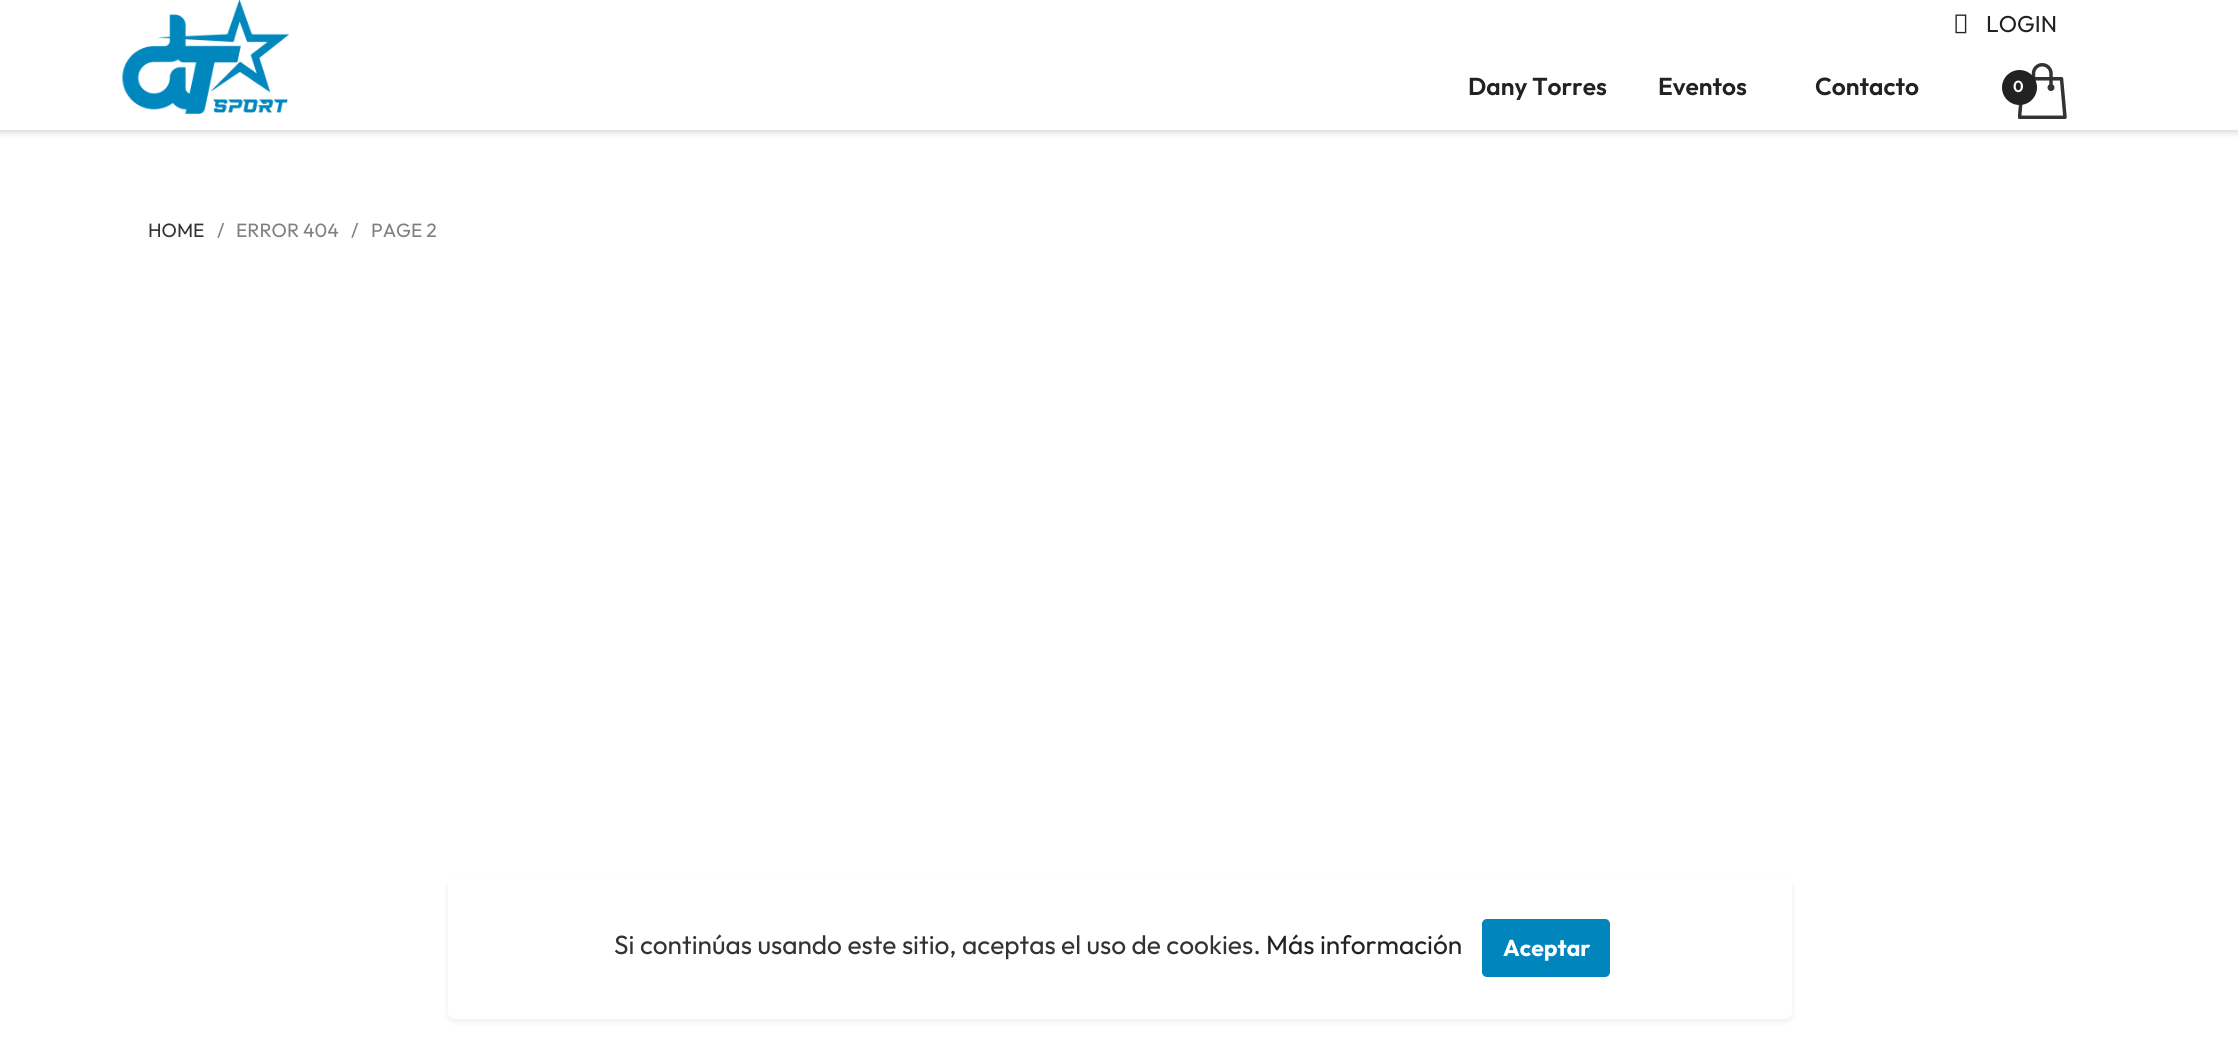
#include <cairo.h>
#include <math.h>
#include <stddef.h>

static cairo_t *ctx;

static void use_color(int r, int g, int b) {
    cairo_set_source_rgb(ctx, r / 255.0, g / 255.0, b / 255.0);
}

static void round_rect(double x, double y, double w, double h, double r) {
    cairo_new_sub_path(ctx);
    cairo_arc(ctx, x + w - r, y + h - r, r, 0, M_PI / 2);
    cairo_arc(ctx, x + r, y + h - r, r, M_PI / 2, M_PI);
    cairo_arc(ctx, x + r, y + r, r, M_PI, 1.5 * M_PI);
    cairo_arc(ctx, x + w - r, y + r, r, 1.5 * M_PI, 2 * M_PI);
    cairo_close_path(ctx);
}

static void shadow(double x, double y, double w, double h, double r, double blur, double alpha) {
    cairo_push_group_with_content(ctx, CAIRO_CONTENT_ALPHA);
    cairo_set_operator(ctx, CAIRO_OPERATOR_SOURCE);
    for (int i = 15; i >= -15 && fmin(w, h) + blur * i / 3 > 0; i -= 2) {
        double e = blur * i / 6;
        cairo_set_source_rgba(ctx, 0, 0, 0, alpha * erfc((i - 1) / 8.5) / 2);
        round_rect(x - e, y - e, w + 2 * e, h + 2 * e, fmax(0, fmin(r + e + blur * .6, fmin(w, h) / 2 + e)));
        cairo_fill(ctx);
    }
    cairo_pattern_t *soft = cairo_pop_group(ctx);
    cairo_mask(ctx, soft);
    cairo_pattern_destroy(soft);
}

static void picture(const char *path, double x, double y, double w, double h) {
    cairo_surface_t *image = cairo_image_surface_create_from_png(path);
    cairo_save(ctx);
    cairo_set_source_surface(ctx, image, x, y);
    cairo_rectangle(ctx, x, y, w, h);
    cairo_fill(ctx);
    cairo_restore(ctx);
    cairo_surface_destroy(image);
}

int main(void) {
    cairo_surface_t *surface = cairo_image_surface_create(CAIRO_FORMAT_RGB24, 2238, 1045);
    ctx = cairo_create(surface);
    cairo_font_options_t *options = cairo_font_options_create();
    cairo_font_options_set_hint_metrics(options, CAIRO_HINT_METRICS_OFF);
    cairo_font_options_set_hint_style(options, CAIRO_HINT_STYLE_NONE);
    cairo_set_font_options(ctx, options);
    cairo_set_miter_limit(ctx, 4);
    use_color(255, 255, 255);
    cairo_paint(ctx);
    use_color(0, 0, 0);
    shadow(0, 0, 2238, 130, 0, 4.5, 0.25);
    use_color(255, 255, 255);
    cairo_rectangle(ctx, 0, 0, 2238, 130);
    cairo_fill(ctx);
    picture("img1.png", 122, 0, 167, 114);
    picture("img2.png", 1955, 14, 12, 20);
    cairo_select_font_face(ctx, "Outfit", CAIRO_FONT_SLANT_NORMAL, CAIRO_FONT_WEIGHT_NORMAL);
    cairo_set_font_size(ctx, 23);
    use_color(34, 34, 34);
    cairo_move_to(ctx, 1986, 32);
    cairo_show_text(ctx, "LOGIN");
    cairo_select_font_face(ctx, "Outfit SemiBold", CAIRO_FONT_SLANT_NORMAL, CAIRO_FONT_WEIGHT_NORMAL);
    cairo_set_font_size(ctx, 24.5);
    cairo_move_to(ctx, 1468, 95);
    cairo_show_text(ctx, "Dany Torres");
    cairo_move_to(ctx, 1658, 95);
    cairo_show_text(ctx, "Eventos");
    cairo_move_to(ctx, 1815, 95);
    cairo_show_text(ctx, "Contacto");
    picture("img3.png", 2018, 63, 49, 56);
    cairo_arc(ctx, 2019.5, 87.5, 17.5, 0, 2 * M_PI);
    cairo_fill(ctx);
    cairo_set_font_size(ctx, 16);
    use_color(255, 255, 255);
    cairo_move_to(ctx, 2013, 92);
    cairo_show_text(ctx, "0");
    cairo_select_font_face(ctx, "Outfit", CAIRO_FONT_SLANT_NORMAL, CAIRO_FONT_WEIGHT_NORMAL);
    cairo_set_font_size(ctx, 19.25);
    use_color(51, 51, 51);
    cairo_move_to(ctx, 148, 237);
    cairo_show_text(ctx, "HOME");
    use_color(128, 128, 128);
    cairo_move_to(ctx, 217, 237);
    cairo_show_text(ctx, "/");
    cairo_move_to(ctx, 236, 237);
    cairo_show_text(ctx, "ERROR 404");
    cairo_move_to(ctx, 351, 237);
    cairo_show_text(ctx, "/");
    cairo_move_to(ctx, 371, 237);
    cairo_show_text(ctx, "PAGE 2");
    use_color(0, 0, 0);
    shadow(448, 880, 1344, 142, 7, 3.5, 0.07);
    use_color(255, 255, 255);
    round_rect(448, 877, 1344, 142, 7);
    cairo_fill(ctx);
    cairo_set_font_size(ctx, 26.25);
    use_color(51, 51, 51);
    cairo_move_to(ctx, 614, 954);
    cairo_show_text(ctx, "Si continúas usando este sitio, aceptas el uso de cookies.");
    use_color(34, 34, 34);
    cairo_move_to(ctx, 1266, 954);
    cairo_show_text(ctx, "Más información");
    use_color(0, 134, 189);
    round_rect(1482, 919, 128, 58, 5);
    cairo_fill(ctx);
    cairo_select_font_face(ctx, "Outfit", CAIRO_FONT_SLANT_NORMAL, CAIRO_FONT_WEIGHT_BOLD);
    cairo_set_font_size(ctx, 23);
    use_color(255, 255, 255);
    cairo_move_to(ctx, 1503, 956);
    cairo_show_text(ctx, "Aceptar");
    cairo_surface_write_to_png(surface, "result.png");
    cairo_font_options_destroy(options);
    cairo_destroy(ctx);
    cairo_surface_destroy(surface);
    return 0;
}
